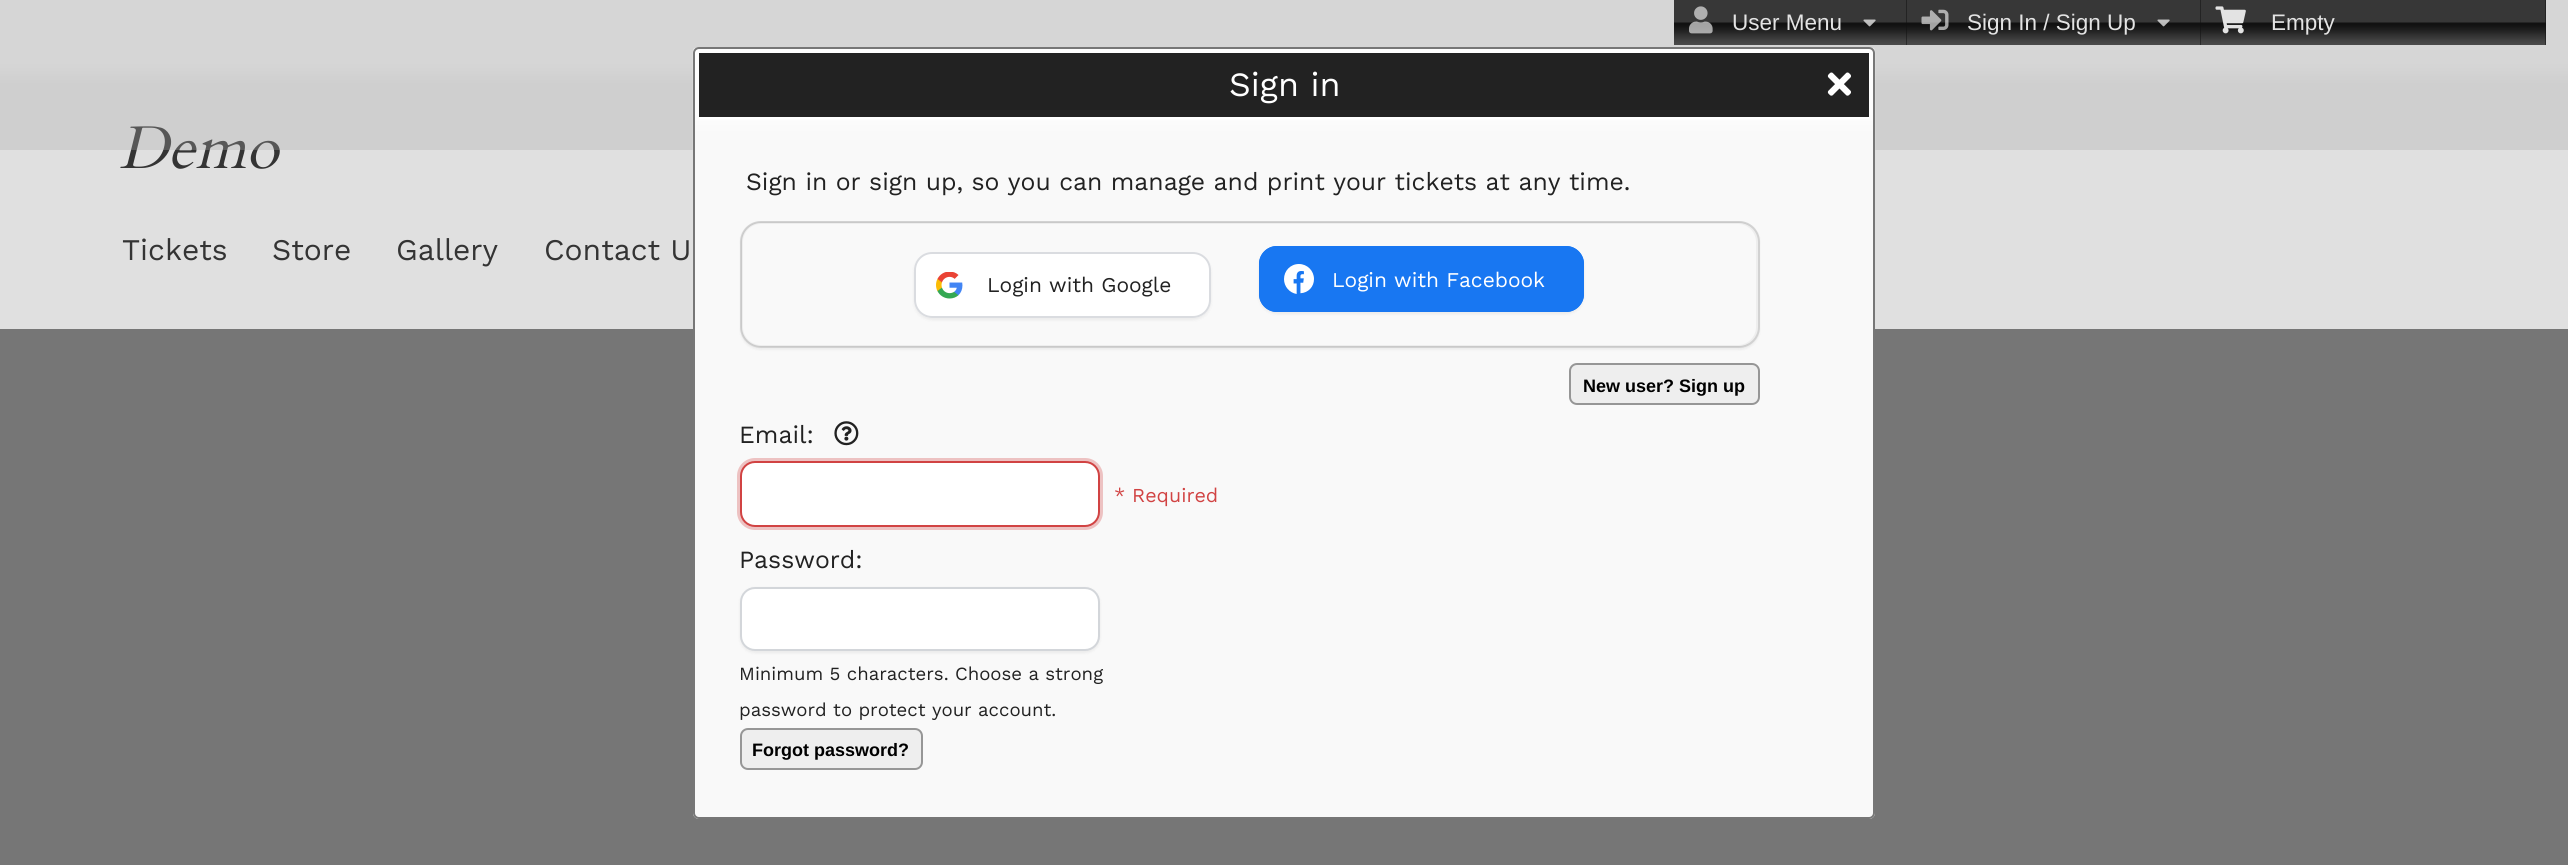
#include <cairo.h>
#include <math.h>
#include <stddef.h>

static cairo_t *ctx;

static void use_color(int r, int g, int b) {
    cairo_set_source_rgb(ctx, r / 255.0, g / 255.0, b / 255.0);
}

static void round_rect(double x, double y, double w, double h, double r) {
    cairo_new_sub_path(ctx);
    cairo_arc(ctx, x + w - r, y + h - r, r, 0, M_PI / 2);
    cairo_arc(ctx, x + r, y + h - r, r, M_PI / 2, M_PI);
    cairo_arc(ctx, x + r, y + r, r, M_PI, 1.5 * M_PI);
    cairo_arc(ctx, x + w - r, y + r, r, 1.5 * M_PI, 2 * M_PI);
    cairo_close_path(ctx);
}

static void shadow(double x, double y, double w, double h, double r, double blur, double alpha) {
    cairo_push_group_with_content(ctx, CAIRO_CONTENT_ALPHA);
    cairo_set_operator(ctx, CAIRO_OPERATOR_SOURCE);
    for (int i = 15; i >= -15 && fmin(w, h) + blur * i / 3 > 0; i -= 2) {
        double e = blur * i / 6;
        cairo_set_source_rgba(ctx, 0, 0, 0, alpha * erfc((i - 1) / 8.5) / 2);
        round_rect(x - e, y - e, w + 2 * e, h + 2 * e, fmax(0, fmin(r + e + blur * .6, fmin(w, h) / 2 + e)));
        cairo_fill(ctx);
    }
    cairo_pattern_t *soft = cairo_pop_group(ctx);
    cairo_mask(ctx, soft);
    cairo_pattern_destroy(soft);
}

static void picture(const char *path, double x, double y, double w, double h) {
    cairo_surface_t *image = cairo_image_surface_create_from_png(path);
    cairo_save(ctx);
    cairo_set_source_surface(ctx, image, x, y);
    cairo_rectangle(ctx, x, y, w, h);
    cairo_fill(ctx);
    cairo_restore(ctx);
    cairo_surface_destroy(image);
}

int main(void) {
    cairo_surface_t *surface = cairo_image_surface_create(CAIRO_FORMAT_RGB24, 2568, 865);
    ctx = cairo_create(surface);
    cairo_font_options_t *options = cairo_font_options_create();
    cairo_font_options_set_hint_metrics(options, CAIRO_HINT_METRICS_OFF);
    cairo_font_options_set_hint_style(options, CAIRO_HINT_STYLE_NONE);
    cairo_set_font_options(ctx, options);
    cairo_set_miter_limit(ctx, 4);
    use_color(118, 118, 118);
    cairo_paint(ctx);
    use_color(224, 224, 224);
    cairo_rectangle(ctx, 0, 0, 2568, 329);
    cairo_fill(ctx);
    cairo_select_font_face(ctx, "Cardo", CAIRO_FONT_SLANT_ITALIC, CAIRO_FONT_WEIGHT_NORMAL);
    cairo_set_font_size(ctx, 60);
    use_color(52, 52, 52);
    cairo_move_to(ctx, 119, 168);
    cairo_show_text(ctx, "Demo");
    picture("img1.png", 0, 0, 2568, 150);
    use_color(17, 17, 17);
    cairo_rectangle(ctx, 1906, 0, 1, 45);
    cairo_fill(ctx);
    picture("img2.png", 1674, 0, 233, 45);
    picture("img3.png", 1689, 6, 24, 28);
    cairo_select_font_face(ctx, "Liberation Sans", CAIRO_FONT_SLANT_NORMAL, CAIRO_FONT_WEIGHT_NORMAL);
    cairo_set_font_size(ctx, 22.5);
    use_color(227, 227, 227);
    cairo_move_to(ctx, 1732, 30);
    cairo_show_text(ctx, "User Menu");
    picture("img4.png", 1863, 19, 13, 8);
    use_color(17, 17, 17);
    cairo_rectangle(ctx, 2200, 0, 1, 45);
    cairo_fill(ctx);
    picture("img5.png", 1907, 0, 294, 45);
    picture("img6.png", 1921, 9, 28, 22);
    use_color(227, 227, 227);
    cairo_move_to(ctx, 1967, 30);
    cairo_show_text(ctx, "Sign In / Sign Up");
    picture("img4.png", 2157, 19, 13, 8);
    use_color(17, 17, 17);
    cairo_rectangle(ctx, 2545, 0, 1, 45);
    cairo_fill(ctx);
    picture("img7.png", 2201, 0, 345, 45);
    picture("img8.png", 2215, 6, 31, 28);
    use_color(227, 227, 227);
    cairo_move_to(ctx, 2271, 30);
    cairo_show_text(ctx, "Empty");
    cairo_select_font_face(ctx, "Work Sans", CAIRO_FONT_SLANT_NORMAL, CAIRO_FONT_WEIGHT_NORMAL);
    cairo_set_font_size(ctx, 30);
    use_color(52, 52, 52);
    cairo_move_to(ctx, 122, 260);
    cairo_show_text(ctx, "Tickets");
    cairo_move_to(ctx, 272, 260);
    cairo_show_text(ctx, "Store");
    cairo_move_to(ctx, 396, 260);
    cairo_show_text(ctx, "Gallery");
    cairo_move_to(ctx, 544, 260);
    cairo_show_text(ctx, "Contact U");
    use_color(249, 249, 249);
    round_rect(693, 47, 1182, 772, 6);
    cairo_fill(ctx);
    picture("img9.png", 692, 48, 1184, 102);
    round_rect(694, 48, 1180, 770, 5);
    use_color(119, 119, 119);
    cairo_stroke(ctx);
    use_color(34, 34, 34);
    cairo_rectangle(ctx, 699, 53, 1170, 64);
    cairo_fill(ctx);
    use_color(255, 255, 255);
    cairo_rectangle(ctx, 699, 117, 1170, 2);
    cairo_fill(ctx);
    cairo_set_font_size(ctx, 34);
    cairo_move_to(ctx, 1229, 96);
    cairo_show_text(ctx, "Sign in");
    picture("img10.png", 1827, 72, 24, 24);
    cairo_set_font_size(ctx, 24.75);
    use_color(34, 34, 34);
    cairo_move_to(ctx, 746, 190);
    cairo_show_text(ctx, "Sign in or sign up, so you can manage and print your tickets at any time.");
    cairo_save(ctx);
    cairo_set_fill_rule(ctx, CAIRO_FILL_RULE_EVEN_ODD);
    cairo_new_path(ctx);
    cairo_move_to(ctx, 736, 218);
    cairo_line_to(ctx, 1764, 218);
    cairo_line_to(ctx, 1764, 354);
    cairo_line_to(ctx, 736, 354);
    cairo_close_path(ctx);
    cairo_move_to(ctx, 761, 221);
    cairo_line_to(ctx, 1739, 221);
    cairo_curve_to(ctx, 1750.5, 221, 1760, 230.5, 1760, 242);
    cairo_line_to(ctx, 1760, 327);
    cairo_curve_to(ctx, 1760, 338.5, 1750.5, 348, 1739, 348);
    cairo_line_to(ctx, 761, 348);
    cairo_curve_to(ctx, 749.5, 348, 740, 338.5, 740, 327);
    cairo_line_to(ctx, 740, 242);
    cairo_curve_to(ctx, 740, 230.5, 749.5, 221, 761, 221);
    cairo_close_path(ctx);
    cairo_clip(ctx);
    use_color(0, 0, 0);
    shadow(740, 222, 1020, 128, 21, 1, 0.05);
    cairo_restore(ctx);
    round_rect(742, 223, 1015, 123, 19);
    use_color(238, 238, 238);
    cairo_stroke(ctx);
    round_rect(741, 222, 1018, 125, 20);
    cairo_set_source_rgba(ctx, 0.133, 0.133, 0.133, 0.18);
    cairo_stroke(ctx);
    use_color(0, 0, 0);
    shadow(914, 254, 297, 66, 18, 1.5, 0.06);
    use_color(255, 255, 255);
    round_rect(914, 252, 297, 66, 18);
    cairo_fill(ctx);
    picture("img11.png", 936, 272, 27, 27);
    round_rect(915, 253, 295, 64, 17);
    use_color(218, 220, 224);
    cairo_stroke(ctx);
    cairo_set_font_size(ctx, 21);
    use_color(34, 34, 34);
    cairo_move_to(ctx, 987, 292);
    cairo_show_text(ctx, "Login with Google");
    use_color(0, 0, 0);
    shadow(1259, 248, 325, 66, 18, 1.5, 0.06);
    use_color(24, 119, 242);
    round_rect(1259, 246, 325, 66, 18);
    cairo_fill(ctx);
    picture("img12.png", 1284, 264, 30, 30);
    round_rect(1260, 247, 323, 64, 17);
    cairo_stroke(ctx);
    use_color(255, 255, 255);
    cairo_move_to(ctx, 1332, 287);
    cairo_show_text(ctx, "Login with Facebook");
    use_color(238, 238, 238);
    round_rect(1570, 364, 189, 40, 7);
    cairo_fill_preserve(ctx);
    use_color(150, 150, 150);
    cairo_stroke(ctx);
    cairo_select_font_face(ctx, "Liberation Sans", CAIRO_FONT_SLANT_NORMAL, CAIRO_FONT_WEIGHT_BOLD);
    cairo_set_font_size(ctx, 18);
    use_color(0, 0, 0);
    cairo_move_to(ctx, 1583, 392);
    cairo_show_text(ctx, "New user? Sign up");
    cairo_select_font_face(ctx, "Work Sans", CAIRO_FONT_SLANT_NORMAL, CAIRO_FONT_WEIGHT_NORMAL);
    cairo_set_font_size(ctx, 24.75);
    use_color(34, 34, 34);
    cairo_move_to(ctx, 739, 443);
    cairo_show_text(ctx, "Email:");
    picture("img13.png", 834, 421, 25, 25);
    round_rect(739, 460, 362, 68, 16);
    use_color(237, 194, 194);
    cairo_set_line_width(ctx, 4);
    cairo_stroke(ctx);
    use_color(255, 255, 255);
    round_rect(741, 462, 358, 64, 14);
    cairo_fill_preserve(ctx);
    use_color(209, 67, 67);
    cairo_set_line_width(ctx, 2);
    cairo_stroke(ctx);
    cairo_set_font_size(ctx, 19.75);
    cairo_move_to(ctx, 1114, 502);
    cairo_show_text(ctx, "* Required");
    cairo_set_font_size(ctx, 24.75);
    use_color(34, 34, 34);
    cairo_move_to(ctx, 739, 568);
    cairo_show_text(ctx, "Password:");
    use_color(0, 0, 0);
    shadow(740, 588, 360, 65, 15, 1.5, 0.06);
    use_color(255, 255, 255);
    round_rect(741, 588, 358, 62, 14);
    cairo_fill_preserve(ctx);
    use_color(211, 214, 218);
    cairo_stroke(ctx);
    cairo_set_font_size(ctx, 18.6);
    use_color(34, 34, 34);
    cairo_move_to(ctx, 739, 680);
    cairo_show_text(ctx, "Minimum 5 characters. Choose a strong");
    cairo_move_to(ctx, 739, 716);
    cairo_show_text(ctx, "password to protect your account.");
    use_color(238, 238, 238);
    round_rect(741, 729, 181, 40, 7);
    cairo_fill_preserve(ctx);
    use_color(150, 150, 150);
    cairo_stroke(ctx);
    cairo_select_font_face(ctx, "Liberation Sans", CAIRO_FONT_SLANT_NORMAL, CAIRO_FONT_WEIGHT_BOLD);
    cairo_set_font_size(ctx, 18);
    use_color(0, 0, 0);
    cairo_move_to(ctx, 752, 756);
    cairo_show_text(ctx, "Forgot password?");
    cairo_surface_write_to_png(surface, "result.png");
    cairo_font_options_destroy(options);
    cairo_destroy(ctx);
    cairo_surface_destroy(surface);
    return 0;
}
